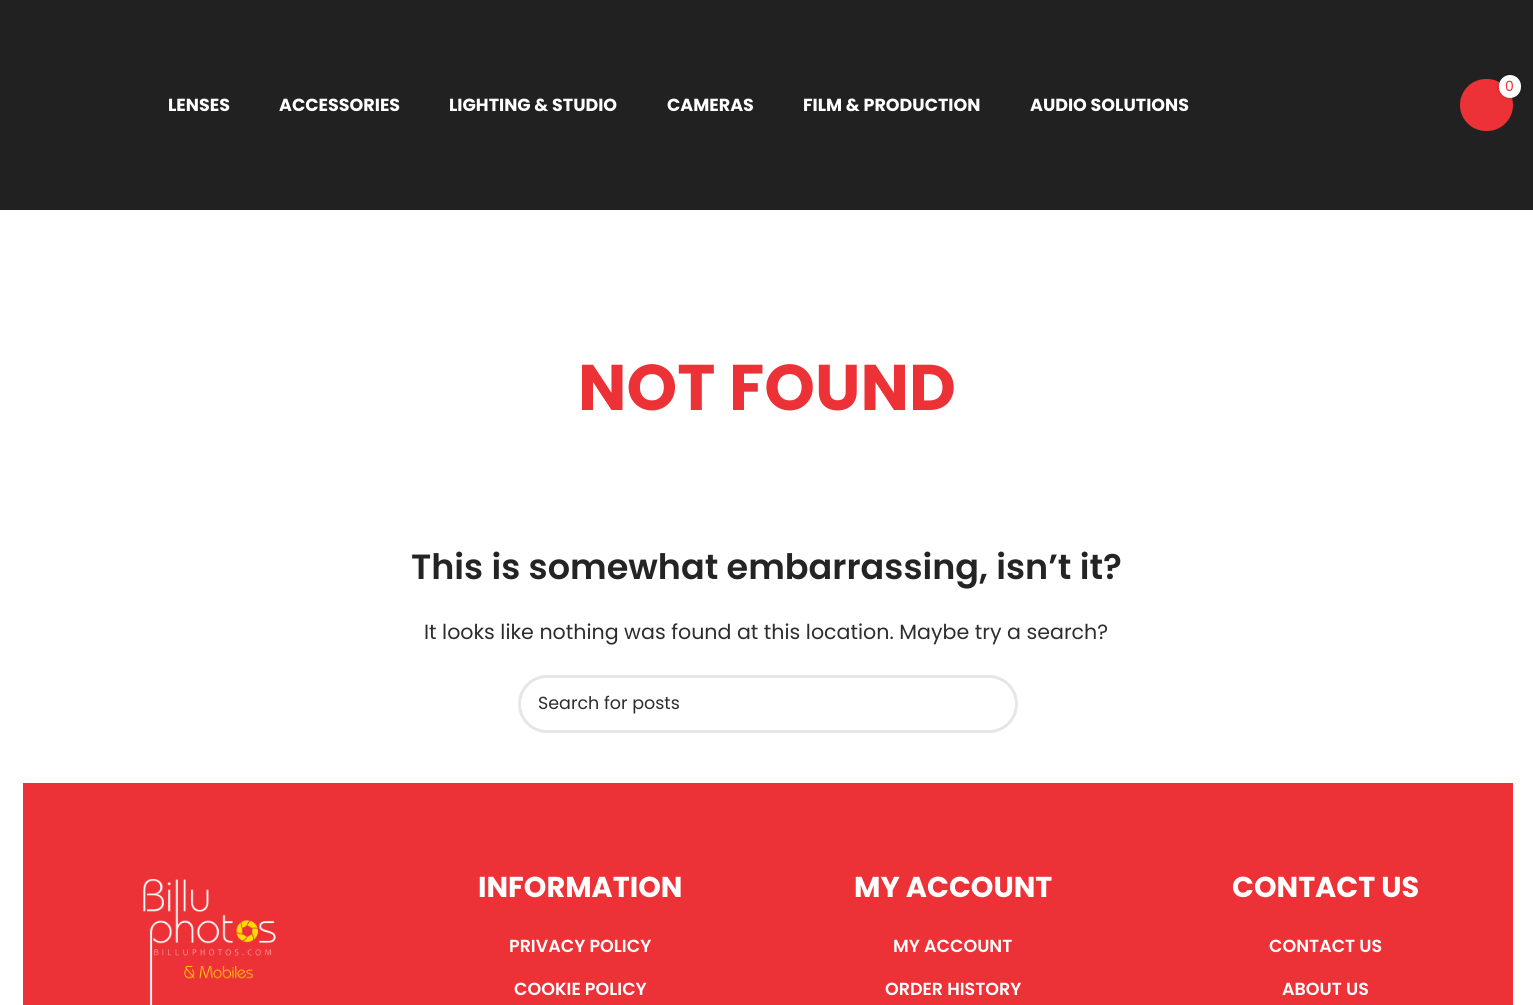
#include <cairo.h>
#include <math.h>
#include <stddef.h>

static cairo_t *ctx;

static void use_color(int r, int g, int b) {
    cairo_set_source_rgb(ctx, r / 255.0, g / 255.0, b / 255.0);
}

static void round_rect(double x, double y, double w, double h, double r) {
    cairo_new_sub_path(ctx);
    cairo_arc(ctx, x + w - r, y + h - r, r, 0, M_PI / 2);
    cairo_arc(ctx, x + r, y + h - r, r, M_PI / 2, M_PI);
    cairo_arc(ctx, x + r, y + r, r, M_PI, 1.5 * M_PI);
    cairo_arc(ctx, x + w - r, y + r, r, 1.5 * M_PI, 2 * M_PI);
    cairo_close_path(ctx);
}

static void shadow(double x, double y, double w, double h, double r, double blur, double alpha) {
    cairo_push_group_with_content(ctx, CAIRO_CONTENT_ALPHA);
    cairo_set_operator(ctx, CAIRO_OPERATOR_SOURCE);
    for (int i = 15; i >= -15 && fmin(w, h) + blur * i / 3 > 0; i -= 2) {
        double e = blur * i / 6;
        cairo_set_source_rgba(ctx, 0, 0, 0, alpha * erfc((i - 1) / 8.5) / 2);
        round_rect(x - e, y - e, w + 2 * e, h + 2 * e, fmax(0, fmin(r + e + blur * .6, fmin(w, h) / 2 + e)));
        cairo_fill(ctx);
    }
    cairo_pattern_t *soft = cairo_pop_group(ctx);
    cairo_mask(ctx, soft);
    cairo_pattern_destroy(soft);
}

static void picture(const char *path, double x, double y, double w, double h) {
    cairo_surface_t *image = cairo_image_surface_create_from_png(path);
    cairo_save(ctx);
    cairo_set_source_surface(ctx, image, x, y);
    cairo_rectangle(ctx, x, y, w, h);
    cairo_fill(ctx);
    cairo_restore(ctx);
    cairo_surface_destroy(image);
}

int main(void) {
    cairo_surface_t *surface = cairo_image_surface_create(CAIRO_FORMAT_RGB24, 1533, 1005);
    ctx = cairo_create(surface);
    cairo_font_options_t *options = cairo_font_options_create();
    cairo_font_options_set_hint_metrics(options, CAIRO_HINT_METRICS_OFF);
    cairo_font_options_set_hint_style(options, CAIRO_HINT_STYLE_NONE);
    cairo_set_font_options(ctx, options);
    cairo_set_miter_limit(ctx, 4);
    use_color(255, 255, 255);
    cairo_paint(ctx);
    use_color(33, 33, 33);
    cairo_rectangle(ctx, 0, 0, 1533, 210);
    cairo_fill(ctx);
    use_color(237, 50, 55);
    round_rect(1460, 79, 53, 52, 26);
    cairo_fill(ctx);
    use_color(0, 0, 0);
    shadow(1499, 75, 22, 23, 11, 2.5, 0.17);
    use_color(255, 255, 255);
    round_rect(1499, 75, 22, 23, 11);
    cairo_fill(ctx);
    cairo_select_font_face(ctx, "Poppins", CAIRO_FONT_SLANT_NORMAL, CAIRO_FONT_WEIGHT_NORMAL);
    cairo_set_font_size(ctx, 14);
    use_color(237, 50, 55);
    cairo_move_to(ctx, 1505, 91);
    cairo_show_text(ctx, "0");
    cairo_select_font_face(ctx, "Poppins", CAIRO_FONT_SLANT_NORMAL, CAIRO_FONT_WEIGHT_BOLD);
    cairo_set_font_size(ctx, 17.5);
    use_color(255, 255, 255);
    cairo_move_to(ctx, 168, 111);
    cairo_show_text(ctx, "LENSES");
    cairo_move_to(ctx, 279, 111);
    cairo_show_text(ctx, "ACCESSORIES");
    cairo_move_to(ctx, 449, 111);
    cairo_show_text(ctx, "LIGHTING & STUDIO");
    cairo_move_to(ctx, 667, 111);
    cairo_show_text(ctx, "CAMERAS");
    cairo_move_to(ctx, 803, 111);
    cairo_show_text(ctx, "FILM & PRODUCTION");
    cairo_move_to(ctx, 1030, 111);
    cairo_show_text(ctx, "AUDIO SOLUTIONS");
    cairo_set_font_size(ctx, 64.5);
    use_color(237, 50, 55);
    cairo_move_to(ctx, 578, 410);
    cairo_show_text(ctx, "NOT FOUND");
    cairo_select_font_face(ctx, "Poppins SemiBold", CAIRO_FONT_SLANT_NORMAL, CAIRO_FONT_WEIGHT_NORMAL);
    cairo_set_font_size(ctx, 35);
    use_color(36, 36, 36);
    cairo_move_to(ctx, 411, 579);
    cairo_show_text(ctx, "This is somewhat embarrassing, isn’t it?");
    cairo_select_font_face(ctx, "Poppins", CAIRO_FONT_SLANT_NORMAL, CAIRO_FONT_WEIGHT_NORMAL);
    cairo_set_font_size(ctx, 20.6);
    use_color(45, 45, 45);
    cairo_move_to(ctx, 424, 639);
    cairo_show_text(ctx, "It looks like nothing was found at this location. Maybe try a search?");
    round_rect(519.5, 676.5, 497, 55, 27.5);
    use_color(230, 230, 230);
    cairo_set_line_width(ctx, 3);
    cairo_stroke(ctx);
    cairo_set_font_size(ctx, 17.5);
    use_color(45, 45, 45);
    cairo_move_to(ctx, 538, 709);
    cairo_show_text(ctx, "Search for posts");
    use_color(237, 50, 55);
    cairo_rectangle(ctx, 23, 783, 1490, 222);
    cairo_fill(ctx);
    picture("img1.png", 143, 879, 133, 126);
    cairo_select_font_face(ctx, "Poppins", CAIRO_FONT_SLANT_NORMAL, CAIRO_FONT_WEIGHT_BOLD);
    cairo_set_font_size(ctx, 28.75);
    use_color(255, 255, 255);
    cairo_move_to(ctx, 478, 897);
    cairo_show_text(ctx, "INFORMATION");
    cairo_select_font_face(ctx, "Poppins SemiBold", CAIRO_FONT_SLANT_NORMAL, CAIRO_FONT_WEIGHT_NORMAL);
    cairo_set_font_size(ctx, 17.5);
    cairo_move_to(ctx, 509, 952);
    cairo_show_text(ctx, "PRIVACY POLICY");
    cairo_move_to(ctx, 514, 995);
    cairo_show_text(ctx, "COOKIE POLICY");
    cairo_select_font_face(ctx, "Poppins", CAIRO_FONT_SLANT_NORMAL, CAIRO_FONT_WEIGHT_BOLD);
    cairo_set_font_size(ctx, 28.75);
    cairo_move_to(ctx, 854, 897);
    cairo_show_text(ctx, "MY ACCOUNT");
    cairo_select_font_face(ctx, "Poppins SemiBold", CAIRO_FONT_SLANT_NORMAL, CAIRO_FONT_WEIGHT_NORMAL);
    cairo_set_font_size(ctx, 17.5);
    cairo_move_to(ctx, 893, 952);
    cairo_show_text(ctx, "MY ACCOUNT");
    cairo_move_to(ctx, 885, 995);
    cairo_show_text(ctx, "ORDER HISTORY");
    cairo_select_font_face(ctx, "Poppins", CAIRO_FONT_SLANT_NORMAL, CAIRO_FONT_WEIGHT_BOLD);
    cairo_set_font_size(ctx, 28.75);
    cairo_move_to(ctx, 1232, 897);
    cairo_show_text(ctx, "CONTACT US");
    cairo_select_font_face(ctx, "Poppins SemiBold", CAIRO_FONT_SLANT_NORMAL, CAIRO_FONT_WEIGHT_NORMAL);
    cairo_set_font_size(ctx, 17.5);
    cairo_move_to(ctx, 1269, 952);
    cairo_show_text(ctx, "CONTACT US");
    cairo_move_to(ctx, 1282, 995);
    cairo_show_text(ctx, "ABOUT US");
    cairo_surface_write_to_png(surface, "result.png");
    cairo_font_options_destroy(options);
    cairo_destroy(ctx);
    cairo_surface_destroy(surface);
    return 0;
}
